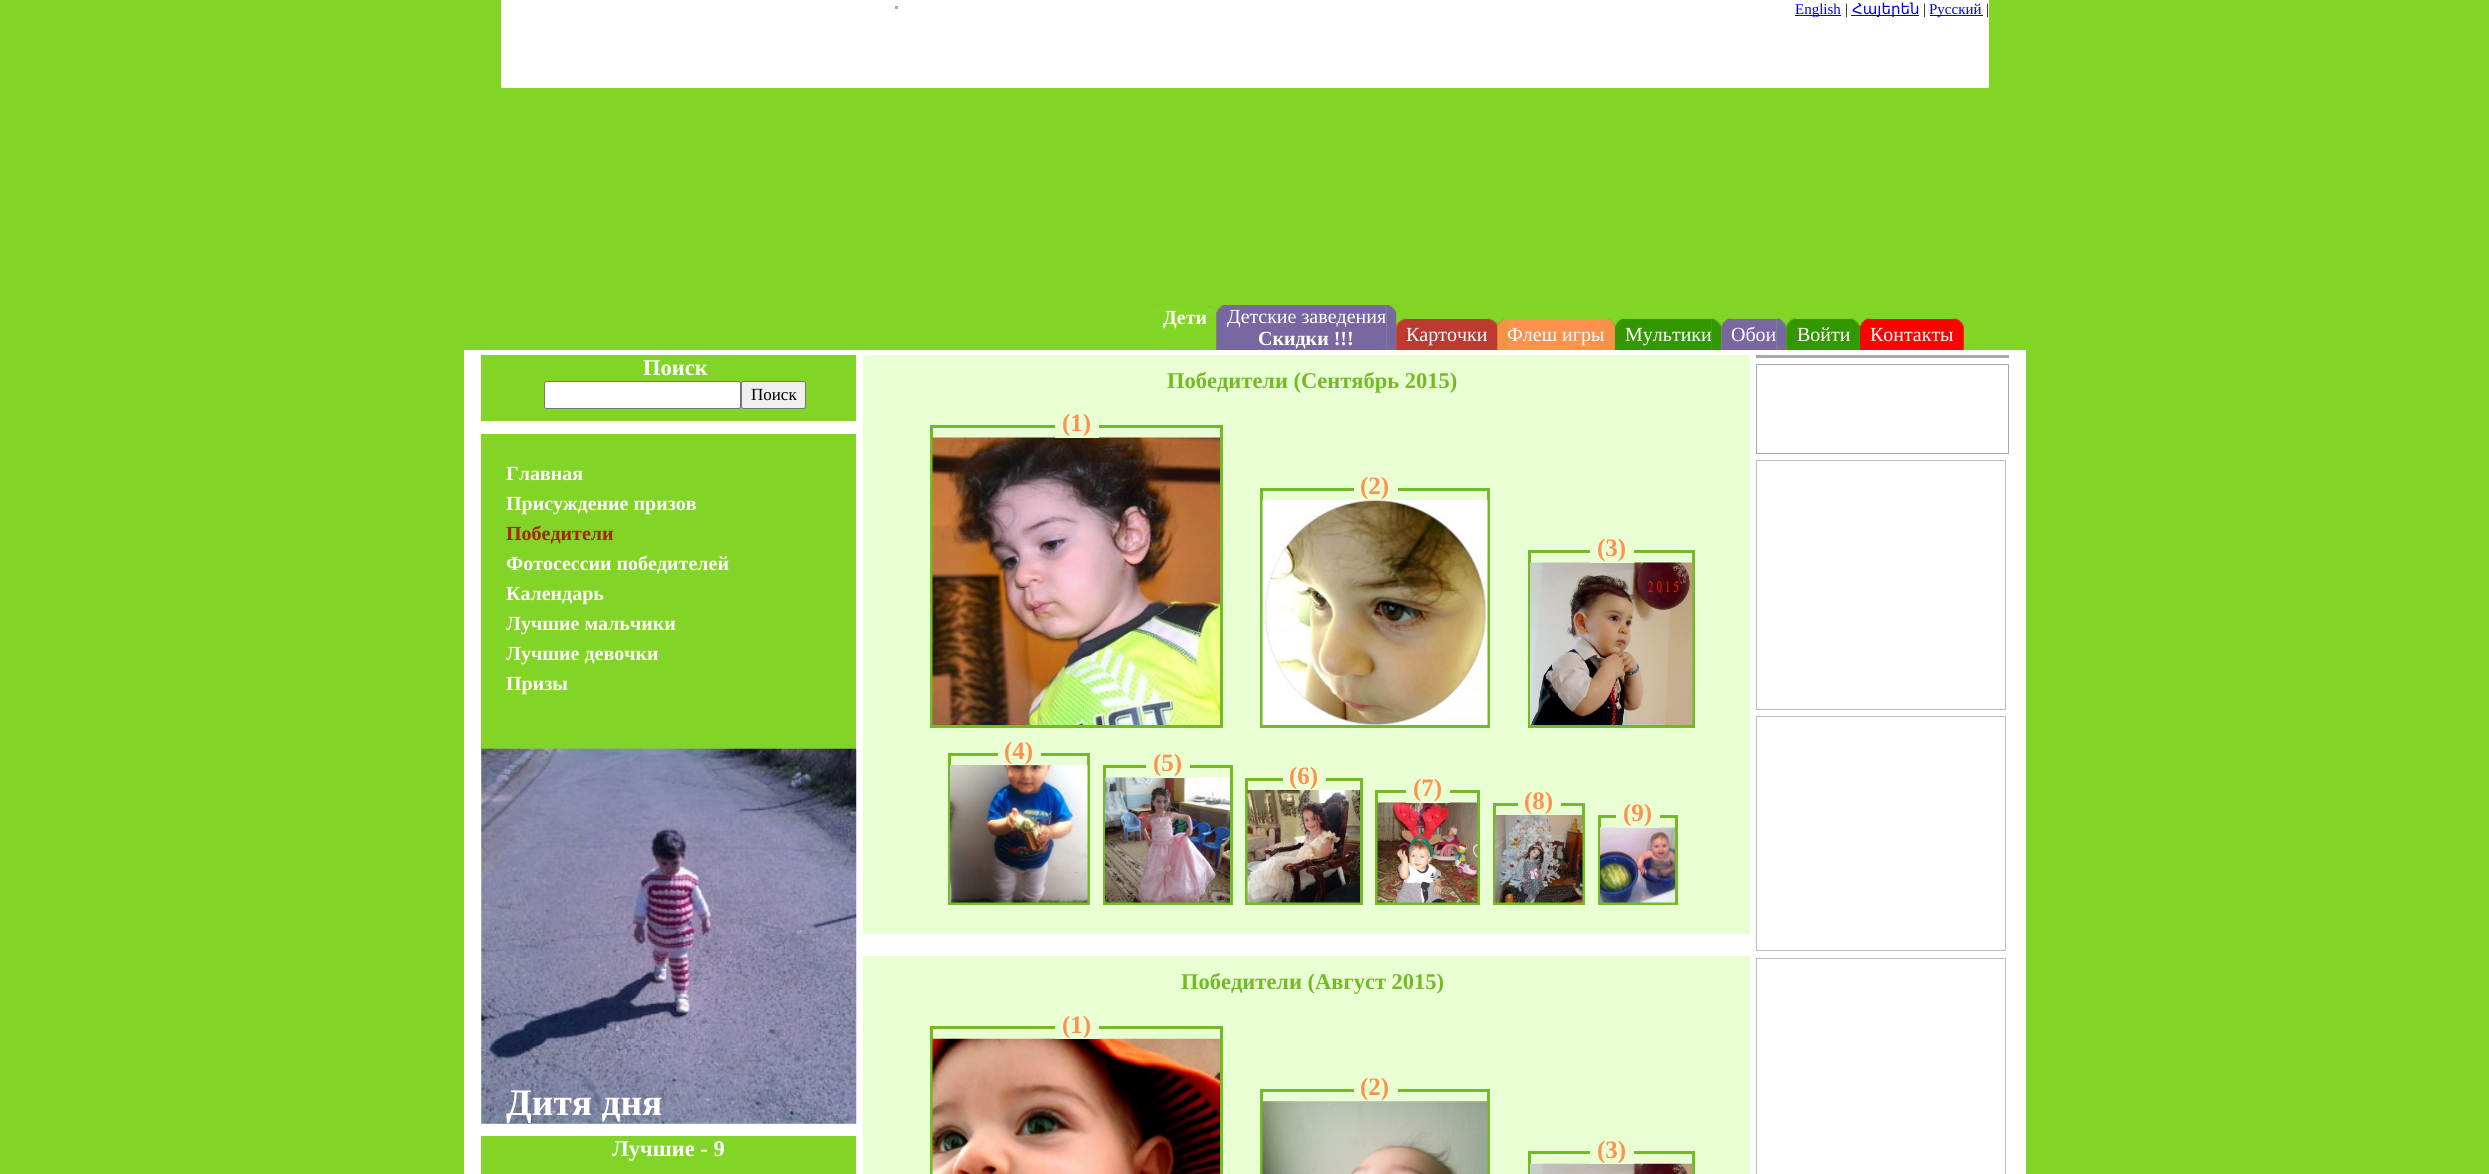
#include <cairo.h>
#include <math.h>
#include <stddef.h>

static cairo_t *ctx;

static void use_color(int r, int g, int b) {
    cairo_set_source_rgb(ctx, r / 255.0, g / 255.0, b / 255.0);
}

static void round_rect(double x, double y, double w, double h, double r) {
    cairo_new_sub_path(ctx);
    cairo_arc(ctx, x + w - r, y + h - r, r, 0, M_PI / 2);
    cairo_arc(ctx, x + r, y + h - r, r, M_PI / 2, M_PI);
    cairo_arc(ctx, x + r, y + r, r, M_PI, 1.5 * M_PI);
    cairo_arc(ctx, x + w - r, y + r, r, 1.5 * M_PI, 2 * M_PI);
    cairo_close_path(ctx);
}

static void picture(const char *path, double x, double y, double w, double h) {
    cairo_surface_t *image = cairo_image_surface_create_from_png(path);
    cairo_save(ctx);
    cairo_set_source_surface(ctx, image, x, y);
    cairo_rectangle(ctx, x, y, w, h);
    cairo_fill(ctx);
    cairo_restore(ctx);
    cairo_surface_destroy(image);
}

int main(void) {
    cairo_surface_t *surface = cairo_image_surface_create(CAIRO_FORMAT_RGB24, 2489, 1174);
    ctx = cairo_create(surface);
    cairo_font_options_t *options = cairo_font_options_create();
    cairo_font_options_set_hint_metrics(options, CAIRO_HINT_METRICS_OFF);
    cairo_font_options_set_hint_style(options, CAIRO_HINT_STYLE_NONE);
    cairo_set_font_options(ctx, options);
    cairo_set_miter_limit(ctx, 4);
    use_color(129, 213, 37);
    cairo_paint(ctx);
    use_color(255, 255, 255);
    cairo_rectangle(ctx, 501, 0, 1488, 88);
    cairo_fill(ctx);
    use_color(170, 170, 170);
    cairo_rectangle(ctx, 895, 6, 3, 3);
    cairo_fill(ctx);
    use_color(0, 0, 238);
    cairo_rectangle(ctx, 1795, 15, 46, 1);
    cairo_fill(ctx);
    cairo_select_font_face(ctx, "Liberation Serif", CAIRO_FONT_SLANT_NORMAL, CAIRO_FONT_WEIGHT_NORMAL);
    cairo_set_font_size(ctx, 15);
    cairo_move_to(ctx, 1795, 14);
    cairo_show_text(ctx, "English");
    use_color(0, 0, 0);
    cairo_move_to(ctx, 1845, 14);
    cairo_show_text(ctx, "|");
    use_color(0, 0, 238);
    cairo_rectangle(ctx, 1851, 15, 68, 1);
    cairo_fill(ctx);
    cairo_select_font_face(ctx, "DejaVu Sans", CAIRO_FONT_SLANT_NORMAL, CAIRO_FONT_WEIGHT_NORMAL);
    cairo_move_to(ctx, 1852, 14);
    cairo_show_text(ctx, "Հայերեն");
    cairo_select_font_face(ctx, "Liberation Serif", CAIRO_FONT_SLANT_NORMAL, CAIRO_FONT_WEIGHT_NORMAL);
    use_color(0, 0, 0);
    cairo_move_to(ctx, 1923, 14);
    cairo_show_text(ctx, "|");
    use_color(0, 0, 238);
    cairo_rectangle(ctx, 1930, 15, 53, 1);
    cairo_fill(ctx);
    cairo_move_to(ctx, 1929, 14);
    cairo_show_text(ctx, "Русский");
    use_color(0, 0, 0);
    cairo_move_to(ctx, 1986, 14);
    cairo_show_text(ctx, "|");
    picture("img1.png", 1152, 306, 7, 9);
    use_color(131, 213, 40);
    cairo_rectangle(ctx, 1163, 306, 43, 44);
    cairo_fill(ctx);
    cairo_select_font_face(ctx, "Liberation Serif", CAIRO_FONT_SLANT_NORMAL, CAIRO_FONT_WEIGHT_BOLD);
    cairo_set_font_size(ctx, 20);
    use_color(255, 255, 255);
    cairo_move_to(ctx, 1163, 324);
    cairo_show_text(ctx, "Дети");
    picture("img2.png", 1207, 306, 10, 9);
    picture("img3.png", 1216, 305, 10, 45);
    use_color(119, 104, 161);
    cairo_rectangle(ctx, 1226, 305, 160, 45);
    cairo_fill(ctx);
    cairo_select_font_face(ctx, "Liberation Serif", CAIRO_FONT_SLANT_NORMAL, CAIRO_FONT_WEIGHT_NORMAL);
    use_color(255, 255, 255);
    cairo_move_to(ctx, 1227, 323);
    cairo_show_text(ctx, "Детские заведения");
    cairo_select_font_face(ctx, "Liberation Serif", CAIRO_FONT_SLANT_NORMAL, CAIRO_FONT_WEIGHT_BOLD);
    cairo_move_to(ctx, 1258, 345);
    cairo_show_text(ctx, "Скидки !!!");
    picture("img4.png", 1386, 305, 11, 45);
    picture("img5.png", 1396, 318, 11, 32);
    use_color(190, 57, 50);
    cairo_rectangle(ctx, 1406, 319, 82, 31);
    cairo_fill(ctx);
    cairo_select_font_face(ctx, "Liberation Serif", CAIRO_FONT_SLANT_NORMAL, CAIRO_FONT_WEIGHT_NORMAL);
    use_color(255, 255, 255);
    cairo_move_to(ctx, 1406, 341);
    cairo_show_text(ctx, "Карточки");
    picture("img6.png", 1487, 318, 11, 32);
    picture("img7.png", 1497, 318, 11, 32);
    use_color(254, 145, 78);
    cairo_rectangle(ctx, 1508, 319, 97, 31);
    cairo_fill(ctx);
    use_color(255, 255, 255);
    cairo_move_to(ctx, 1507, 341);
    cairo_show_text(ctx, "Флеш игры");
    picture("img8.png", 1605, 318, 10, 32);
    picture("img9.png", 1615, 318, 10, 32);
    use_color(51, 151, 1);
    cairo_rectangle(ctx, 1625, 319, 86, 31);
    cairo_fill(ctx);
    use_color(255, 255, 255);
    cairo_move_to(ctx, 1625, 341);
    cairo_show_text(ctx, "Мультики");
    picture("img10.png", 1711, 318, 11, 32);
    picture("img11.png", 1721, 318, 11, 32);
    use_color(119, 104, 161);
    cairo_rectangle(ctx, 1731, 319, 45, 31);
    cairo_fill(ctx);
    picture("img12.png", 1776, 318, 11, 32);
    use_color(255, 255, 255);
    cairo_move_to(ctx, 1731, 341);
    cairo_show_text(ctx, "Обои");
    picture("img13.png", 1786, 318, 11, 32);
    use_color(51, 151, 1);
    cairo_rectangle(ctx, 1796, 319, 54, 31);
    cairo_fill(ctx);
    use_color(255, 255, 255);
    cairo_move_to(ctx, 1797, 341);
    cairo_show_text(ctx, "Войти");
    picture("img14.png", 1850, 318, 10, 32);
    picture("img15.png", 1860, 318, 10, 32);
    use_color(254, 0, 0);
    cairo_rectangle(ctx, 1870, 319, 84, 31);
    cairo_fill(ctx);
    picture("img16.png", 1953, 318, 11, 32);
    use_color(255, 255, 255);
    cairo_move_to(ctx, 1870, 341);
    cairo_show_text(ctx, "Контакты");
    cairo_rectangle(ctx, 464, 350, 1562, 824);
    cairo_fill(ctx);
    use_color(130, 213, 39);
    cairo_rectangle(ctx, 481, 355, 375, 66);
    cairo_fill(ctx);
    cairo_select_font_face(ctx, "Liberation Serif", CAIRO_FONT_SLANT_NORMAL, CAIRO_FONT_WEIGHT_BOLD);
    cairo_set_font_size(ctx, 22.5);
    use_color(255, 255, 255);
    cairo_move_to(ctx, 643, 375);
    cairo_show_text(ctx, "Поиск");
    round_rect(544.5, 381.5, 196, 27, 2);
    cairo_fill_preserve(ctx);
    use_color(118, 118, 118);
    cairo_set_line_width(ctx, 1);
    cairo_stroke(ctx);
    use_color(239, 239, 239);
    round_rect(741.5, 381.5, 64, 27, 2);
    cairo_fill_preserve(ctx);
    use_color(118, 118, 118);
    cairo_stroke(ctx);
    cairo_select_font_face(ctx, "Liberation Serif", CAIRO_FONT_SLANT_NORMAL, CAIRO_FONT_WEIGHT_NORMAL);
    cairo_set_font_size(ctx, 17);
    use_color(0, 0, 0);
    cairo_move_to(ctx, 751, 400);
    cairo_show_text(ctx, "Поиск");
    use_color(130, 213, 39);
    cairo_rectangle(ctx, 481, 434, 375, 315);
    cairo_fill(ctx);
    cairo_select_font_face(ctx, "Liberation Serif", CAIRO_FONT_SLANT_NORMAL, CAIRO_FONT_WEIGHT_BOLD);
    cairo_set_font_size(ctx, 20);
    use_color(255, 255, 255);
    cairo_move_to(ctx, 506, 480);
    cairo_show_text(ctx, "Главная");
    cairo_move_to(ctx, 506, 510);
    cairo_show_text(ctx, "Присуждение призов");
    use_color(170, 34, 0);
    cairo_move_to(ctx, 506, 540);
    cairo_show_text(ctx, "Победители");
    use_color(255, 255, 255);
    cairo_move_to(ctx, 506, 570);
    cairo_show_text(ctx, "Фотосессии победителей");
    cairo_move_to(ctx, 506, 600);
    cairo_show_text(ctx, "Календарь");
    cairo_move_to(ctx, 506, 630);
    cairo_show_text(ctx, "Лучшие мальчики");
    cairo_move_to(ctx, 506, 660);
    cairo_show_text(ctx, "Лучшие девочки");
    cairo_move_to(ctx, 506, 690);
    cairo_show_text(ctx, "Призы");
    use_color(233, 254, 210);
    cairo_rectangle(ctx, 481, 749, 375, 375);
    cairo_fill(ctx);
    picture("img17.png", 481, 748, 376, 376);
    cairo_set_font_size(ctx, 37.5);
    use_color(255, 255, 255);
    cairo_move_to(ctx, 506, 1115);
    cairo_show_text(ctx, "Дитя дня");
    use_color(130, 213, 39);
    cairo_rectangle(ctx, 481, 1136, 375, 38);
    cairo_fill(ctx);
    cairo_set_font_size(ctx, 22.5);
    use_color(255, 255, 255);
    cairo_move_to(ctx, 612, 1156);
    cairo_show_text(ctx, "Лучшие - 9");
    use_color(233, 254, 210);
    cairo_rectangle(ctx, 863, 355, 887, 579);
    cairo_fill(ctx);
    use_color(115, 187, 36);
    cairo_move_to(ctx, 1167, 388);
    cairo_show_text(ctx, "Победители (Сентябрь 2015)");
    cairo_rectangle(ctx, 931.5, 426.5, 290, 300);
    cairo_set_line_width(ctx, 3);
    cairo_stroke(ctx);
    picture("img18.png", 932, 437, 288, 288);
    use_color(233, 254, 210);
    cairo_rectangle(ctx, 1055, 425, 44, 13);
    cairo_fill(ctx);
    cairo_set_font_size(ctx, 25);
    use_color(254, 145, 78);
    cairo_move_to(ctx, 1062, 431);
    cairo_show_text(ctx, "(1)");
    cairo_rectangle(ctx, 1261.5, 489.5, 227, 237);
    use_color(115, 187, 36);
    cairo_stroke(ctx);
    use_color(233, 254, 210);
    cairo_rectangle(ctx, 1354, 488, 44, 3);
    cairo_fill(ctx);
    use_color(254, 145, 78);
    cairo_move_to(ctx, 1360, 494);
    cairo_show_text(ctx, "(2)");
    picture("img19.png", 1262, 500, 226, 225);
    cairo_rectangle(ctx, 1529.5, 551.5, 164, 175);
    use_color(115, 187, 36);
    cairo_stroke(ctx);
    picture("img20.png", 1530, 562, 163, 163);
    use_color(233, 254, 210);
    cairo_rectangle(ctx, 1590, 550, 44, 13);
    cairo_fill(ctx);
    use_color(254, 145, 78);
    cairo_move_to(ctx, 1597, 556);
    cairo_show_text(ctx, "(3)");
    cairo_rectangle(ctx, 949.5, 754.5, 139, 149);
    use_color(115, 187, 36);
    cairo_stroke(ctx);
    use_color(233, 254, 210);
    cairo_rectangle(ctx, 998, 753, 43, 3);
    cairo_fill(ctx);
    use_color(254, 145, 78);
    cairo_move_to(ctx, 1004, 759);
    cairo_show_text(ctx, "(4)");
    picture("img21.png", 950, 765, 138, 138);
    cairo_rectangle(ctx, 1104.5, 766.5, 127, 137);
    use_color(115, 187, 36);
    cairo_stroke(ctx);
    picture("img22.png", 1105, 777, 125, 126);
    use_color(233, 254, 210);
    cairo_rectangle(ctx, 1146, 765, 44, 13);
    cairo_fill(ctx);
    use_color(254, 145, 78);
    cairo_move_to(ctx, 1153, 771);
    cairo_show_text(ctx, "(5)");
    cairo_rectangle(ctx, 1246.5, 779.5, 115, 124);
    use_color(115, 187, 36);
    cairo_stroke(ctx);
    use_color(233, 254, 210);
    cairo_rectangle(ctx, 1283, 778, 43, 3);
    cairo_fill(ctx);
    use_color(254, 145, 78);
    cairo_move_to(ctx, 1289, 784);
    cairo_show_text(ctx, "(6)");
    picture("img23.png", 1247, 790, 113, 113);
    cairo_rectangle(ctx, 1376.5, 791.5, 102, 112);
    use_color(115, 187, 36);
    cairo_stroke(ctx);
    picture("img24.png", 1377, 802, 101, 101);
    use_color(233, 254, 210);
    cairo_rectangle(ctx, 1406, 790, 44, 13);
    cairo_fill(ctx);
    use_color(254, 145, 78);
    cairo_move_to(ctx, 1413, 796);
    cairo_show_text(ctx, "(7)");
    cairo_rectangle(ctx, 1494.5, 804.5, 89, 99);
    use_color(115, 187, 36);
    cairo_stroke(ctx);
    use_color(233, 254, 210);
    cairo_rectangle(ctx, 1518, 803, 43, 3);
    cairo_fill(ctx);
    use_color(254, 145, 78);
    cairo_move_to(ctx, 1524, 809);
    cairo_show_text(ctx, "(8)");
    picture("img25.png", 1495, 815, 88, 88);
    cairo_rectangle(ctx, 1599.5, 816.5, 77, 87);
    use_color(115, 187, 36);
    cairo_stroke(ctx);
    picture("img26.png", 1600, 827, 75, 76);
    use_color(233, 254, 210);
    cairo_rectangle(ctx, 1616, 815, 44, 13);
    cairo_fill(ctx);
    use_color(254, 145, 78);
    cairo_move_to(ctx, 1623, 821);
    cairo_show_text(ctx, "(9)");
    use_color(233, 254, 210);
    cairo_rectangle(ctx, 863, 956, 887, 218);
    cairo_fill(ctx);
    cairo_set_font_size(ctx, 22.5);
    use_color(115, 187, 36);
    cairo_move_to(ctx, 1181, 989);
    cairo_show_text(ctx, "Победители (Август 2015)");
    cairo_rectangle(ctx, 931.5, 1027.5, 290, 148);
    cairo_stroke(ctx);
    picture("img27.png", 932, 1038, 288, 136);
    use_color(233, 254, 210);
    cairo_rectangle(ctx, 1055, 1026, 44, 13);
    cairo_fill(ctx);
    cairo_set_font_size(ctx, 25);
    use_color(254, 145, 78);
    cairo_move_to(ctx, 1062, 1033);
    cairo_show_text(ctx, "(1)");
    cairo_rectangle(ctx, 1261.5, 1090.5, 227, 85);
    use_color(115, 187, 36);
    cairo_stroke(ctx);
    use_color(233, 254, 210);
    cairo_rectangle(ctx, 1354, 1089, 44, 3);
    cairo_fill(ctx);
    use_color(254, 145, 78);
    cairo_move_to(ctx, 1360, 1095);
    cairo_show_text(ctx, "(2)");
    picture("img28.png", 1262, 1101, 226, 73);
    cairo_rectangle(ctx, 1529.5, 1152.5, 164, 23);
    use_color(115, 187, 36);
    cairo_stroke(ctx);
    picture("img29.png", 1530, 1163, 163, 11);
    use_color(233, 254, 210);
    cairo_rectangle(ctx, 1590, 1151, 44, 13);
    cairo_fill(ctx);
    use_color(254, 145, 78);
    cairo_move_to(ctx, 1597, 1158);
    cairo_show_text(ctx, "(3)");
    use_color(170, 170, 170);
    cairo_rectangle(ctx, 1756, 355, 253, 3);
    cairo_fill(ctx);
    cairo_rectangle(ctx, 1756.5, 364.5, 252, 89);
    cairo_set_line_width(ctx, 1);
    cairo_stroke(ctx);
    cairo_rectangle(ctx, 1756.5, 460.5, 249, 249);
    use_color(187, 187, 187);
    cairo_stroke(ctx);
    cairo_rectangle(ctx, 1756.5, 716.5, 249, 234);
    cairo_stroke(ctx);
    cairo_rectangle(ctx, 1756.5, 958.5, 249, 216);
    cairo_stroke(ctx);
    cairo_surface_write_to_png(surface, "result.png");
    cairo_font_options_destroy(options);
    cairo_destroy(ctx);
    cairo_surface_destroy(surface);
    return 0;
}
